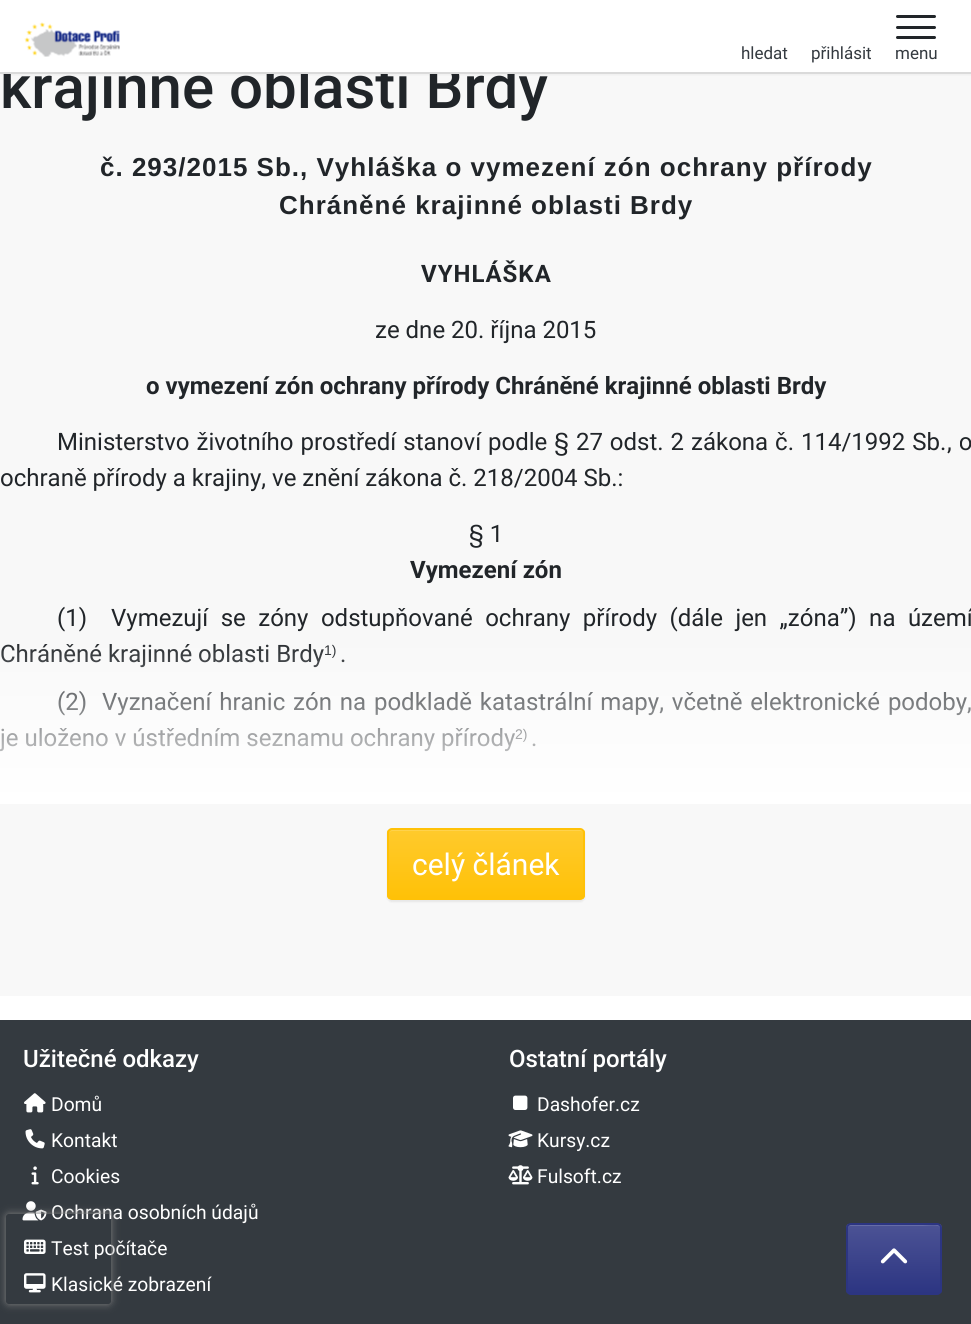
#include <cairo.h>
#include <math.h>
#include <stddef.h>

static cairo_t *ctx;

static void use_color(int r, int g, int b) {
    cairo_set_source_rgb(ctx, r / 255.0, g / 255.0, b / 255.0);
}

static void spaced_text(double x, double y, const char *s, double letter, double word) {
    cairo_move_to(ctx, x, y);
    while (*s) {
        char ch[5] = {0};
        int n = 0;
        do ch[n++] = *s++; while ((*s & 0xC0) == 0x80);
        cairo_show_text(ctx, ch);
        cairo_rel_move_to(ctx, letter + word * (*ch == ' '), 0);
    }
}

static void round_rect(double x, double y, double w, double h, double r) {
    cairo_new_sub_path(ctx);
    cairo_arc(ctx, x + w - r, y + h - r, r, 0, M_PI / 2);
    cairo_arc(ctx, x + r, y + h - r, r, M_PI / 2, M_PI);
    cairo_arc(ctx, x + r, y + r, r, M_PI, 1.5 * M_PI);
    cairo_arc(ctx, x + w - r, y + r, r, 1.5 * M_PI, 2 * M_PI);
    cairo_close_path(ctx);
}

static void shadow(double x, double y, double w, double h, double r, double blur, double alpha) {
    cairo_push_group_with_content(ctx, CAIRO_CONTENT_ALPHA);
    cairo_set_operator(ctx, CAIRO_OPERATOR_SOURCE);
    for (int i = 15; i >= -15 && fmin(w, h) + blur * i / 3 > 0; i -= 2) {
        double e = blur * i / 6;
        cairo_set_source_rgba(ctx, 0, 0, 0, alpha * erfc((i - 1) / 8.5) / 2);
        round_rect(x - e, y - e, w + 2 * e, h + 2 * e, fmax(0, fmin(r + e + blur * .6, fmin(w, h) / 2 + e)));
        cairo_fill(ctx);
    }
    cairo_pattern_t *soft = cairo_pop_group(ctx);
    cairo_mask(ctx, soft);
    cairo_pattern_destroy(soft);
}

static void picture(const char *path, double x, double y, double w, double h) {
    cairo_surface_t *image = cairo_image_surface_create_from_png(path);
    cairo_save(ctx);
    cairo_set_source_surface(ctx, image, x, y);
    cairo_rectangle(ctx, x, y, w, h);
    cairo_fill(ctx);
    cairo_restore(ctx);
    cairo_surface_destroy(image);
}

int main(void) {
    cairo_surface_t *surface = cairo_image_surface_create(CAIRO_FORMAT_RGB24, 971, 1324);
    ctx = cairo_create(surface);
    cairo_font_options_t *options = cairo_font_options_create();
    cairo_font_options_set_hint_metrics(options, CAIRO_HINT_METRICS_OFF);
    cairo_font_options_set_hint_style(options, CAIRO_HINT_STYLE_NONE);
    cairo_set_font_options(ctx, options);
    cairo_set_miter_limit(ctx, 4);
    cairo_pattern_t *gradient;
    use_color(248, 248, 248);
    cairo_paint(ctx);
    use_color(238, 238, 238);
    shadow(2, 2, 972, 73, 0, 1, 1);
    cairo_select_font_face(ctx, "Roboto Medium", CAIRO_FONT_SLANT_NORMAL, CAIRO_FONT_WEIGHT_NORMAL);
    cairo_set_font_size(ctx, 60);
    use_color(33, 37, 41);
    cairo_move_to(ctx, 0, 108);
    cairo_show_text(ctx, "krajinné oblasti Brdy");
    use_color(255, 255, 255);
    cairo_rectangle(ctx, 0, 0, 971, 72);
    cairo_fill(ctx);
    use_color(218, 218, 218);
    cairo_rectangle(ctx, 0, 72, 971, 2);
    cairo_fill(ctx);
    picture("img1.png", 24, 22, 96, 35);
    cairo_select_font_face(ctx, "Roboto", CAIRO_FONT_SLANT_NORMAL, CAIRO_FONT_WEIGHT_NORMAL);
    cairo_set_font_size(ctx, 17);
    use_color(52, 58, 64);
    cairo_move_to(ctx, 741, 59);
    cairo_show_text(ctx, "hledat");
    cairo_move_to(ctx, 811, 59);
    cairo_show_text(ctx, "přihlásit");
    use_color(33, 37, 41);
    round_rect(896, 15, 40, 3, 1.5);
    cairo_fill(ctx);
    round_rect(896, 26, 40, 3, 1.5);
    cairo_fill(ctx);
    round_rect(896, 36, 40, 3, 1.5);
    cairo_fill(ctx);
    use_color(52, 58, 64);
    cairo_move_to(ctx, 895, 59);
    cairo_show_text(ctx, "menu");
    cairo_select_font_face(ctx, "Liberation Sans", CAIRO_FONT_SLANT_NORMAL, CAIRO_FONT_WEIGHT_BOLD);
    cairo_set_font_size(ctx, 26);
    use_color(33, 37, 41);
    spaced_text(100, 176, "č. 293/2015 Sb., Vyhláška o vymezení zón ochrany přírody", 1, 0);
    spaced_text(279, 214, "Chráněné krajinné oblasti Brdy", 1, 0);
    cairo_select_font_face(ctx, "Roboto", CAIRO_FONT_SLANT_NORMAL, CAIRO_FONT_WEIGHT_BOLD);
    cairo_set_font_size(ctx, 24);
    spaced_text(421, 282, "VYHLÁŠKA", 1, 0);
    cairo_select_font_face(ctx, "Roboto", CAIRO_FONT_SLANT_NORMAL, CAIRO_FONT_WEIGHT_NORMAL);
    cairo_move_to(ctx, 375, 338);
    cairo_show_text(ctx, "ze dne 20. října 2015");
    cairo_select_font_face(ctx, "Roboto", CAIRO_FONT_SLANT_NORMAL, CAIRO_FONT_WEIGHT_BOLD);
    cairo_move_to(ctx, 146, 394);
    cairo_show_text(ctx, "o vymezení zón ochrany přírody Chráněné krajinné oblasti Brdy");
    cairo_select_font_face(ctx, "Roboto", CAIRO_FONT_SLANT_NORMAL, CAIRO_FONT_WEIGHT_NORMAL);
    spaced_text(57, 450, "Ministerstvo životního prostředí stanoví podle § 27 odst. 2 zákona č.", 0, 1);
    spaced_text(801, 450, "114/1992 Sb.", 0, 1);
    spaced_text(947, 450, ", o", 0, 1);
    cairo_move_to(ctx, 0, 486);
    cairo_show_text(ctx, "ochraně přírody a krajiny, ve znění zákona č. 218/2004 Sb.:");
    cairo_move_to(ctx, 469, 542);
    cairo_show_text(ctx, "§ 1");
    cairo_select_font_face(ctx, "Roboto", CAIRO_FONT_SLANT_NORMAL, CAIRO_FONT_WEIGHT_BOLD);
    cairo_move_to(ctx, 410, 578);
    cairo_show_text(ctx, "Vymezení zón");
    cairo_select_font_face(ctx, "Roboto", CAIRO_FONT_SLANT_NORMAL, CAIRO_FONT_WEIGHT_NORMAL);
    cairo_move_to(ctx, 57, 626);
    cairo_show_text(ctx, "(1)");
    spaced_text(111, 626, "Vymezují se zóny odstupňované ochrany přírody (dále jen „zóna”) na území", 0, 6.5);
    cairo_move_to(ctx, 0, 662);
    cairo_show_text(ctx, "Chráněné krajinné oblasti Brdy");
    cairo_select_font_face(ctx, "Liberation Sans", CAIRO_FONT_SLANT_NORMAL, CAIRO_FONT_WEIGHT_NORMAL);
    cairo_set_font_size(ctx, 14);
    cairo_move_to(ctx, 324, 655);
    cairo_show_text(ctx, "1)");
    cairo_select_font_face(ctx, "Roboto", CAIRO_FONT_SLANT_NORMAL, CAIRO_FONT_WEIGHT_NORMAL);
    cairo_set_font_size(ctx, 24);
    cairo_move_to(ctx, 340, 662);
    cairo_show_text(ctx, ".");
    cairo_move_to(ctx, 57, 710);
    cairo_show_text(ctx, "(2)");
    spaced_text(102, 710, "Vyznačení hranic zón na podkladě katastrální mapy, včetně elektronické podoby,", 0, 1.9);
    cairo_move_to(ctx, 0, 746);
    cairo_show_text(ctx, "je uloženo v ústředním seznamu ochrany přírody");
    cairo_select_font_face(ctx, "Liberation Sans", CAIRO_FONT_SLANT_NORMAL, CAIRO_FONT_WEIGHT_NORMAL);
    cairo_set_font_size(ctx, 14);
    cairo_move_to(ctx, 515, 739);
    cairo_show_text(ctx, "2)");
    cairo_select_font_face(ctx, "Roboto", CAIRO_FONT_SLANT_NORMAL, CAIRO_FONT_WEIGHT_NORMAL);
    cairo_set_font_size(ctx, 24);
    cairo_move_to(ctx, 531, 746);
    cairo_show_text(ctx, ".");
    gradient = cairo_pattern_create_linear(486, 636, 486, 804);
    cairo_pattern_add_color_stop_rgba(gradient, 0, 1, 1, 1, 0);
    cairo_pattern_add_color_stop_rgba(gradient, 1, 1, 1, 1, 1);
    cairo_set_source(ctx, gradient);
    cairo_pattern_destroy(gradient);
    cairo_rectangle(ctx, 0, 644, 971, 160);
    cairo_fill(ctx);
    use_color(0, 0, 0);
    shadow(387, 830, 198, 72, 5, 1, 0.07);
    cairo_save(ctx);
    round_rect(387, 828, 198, 72, 5);
    cairo_clip(ctx);
    gradient = cairo_pattern_create_linear(486, 830, 486, 899);
    cairo_pattern_add_color_stop_rgba(gradient, 0, 1, 0.792, 0.173, 1);
    cairo_pattern_add_color_stop_rgba(gradient, 1, 1, 0.757, 0.027, 1);
    cairo_set_source(ctx, gradient);
    cairo_pattern_destroy(gradient);
    cairo_rectangle(ctx, 387, 830, 198, 69);
    cairo_fill(ctx);
    cairo_restore(ctx);
    use_color(255, 210, 76);
    cairo_new_path(ctx);
    cairo_move_to(ctx, 392, 831);
    cairo_line_to(ctx, 580, 831);
    cairo_curve_to(ctx, 582, 831, 584, 832, 584, 834);
    cairo_line_to(ctx, 584, 833);
    cairo_curve_to(ctx, 584, 831, 583, 830, 581, 830);
    cairo_line_to(ctx, 392, 830);
    cairo_curve_to(ctx, 391, 830, 390, 831, 389, 832);
    cairo_close_path(ctx);
    cairo_fill(ctx);
    round_rect(388, 829, 196, 70, 4);
    use_color(255, 193, 7);
    cairo_stroke(ctx);
    cairo_set_font_size(ctx, 30);
    use_color(255, 255, 255);
    cairo_move_to(ctx, 412, 875);
    cairo_show_text(ctx, "celý článek");
    cairo_rectangle(ctx, 0, 996, 971, 24);
    cairo_fill(ctx);
    use_color(52, 58, 64);
    cairo_rectangle(ctx, 0, 1020, 971, 304);
    cairo_fill(ctx);
    cairo_select_font_face(ctx, "Roboto Medium", CAIRO_FONT_SLANT_NORMAL, CAIRO_FONT_WEIGHT_NORMAL);
    cairo_set_font_size(ctx, 24);
    use_color(255, 255, 255);
    cairo_move_to(ctx, 23, 1067);
    cairo_show_text(ctx, "Užitečné odkazy");
    picture("img2.png", 24, 1093, 22, 20);
    cairo_select_font_face(ctx, "Roboto", CAIRO_FONT_SLANT_NORMAL, CAIRO_FONT_WEIGHT_NORMAL);
    cairo_set_font_size(ctx, 19.25);
    cairo_move_to(ctx, 51, 1111);
    cairo_show_text(ctx, "Domů");
    picture("img3.png", 25, 1129, 20, 20);
    cairo_move_to(ctx, 51, 1147);
    cairo_show_text(ctx, "Kontakt");
    picture("img4.png", 31, 1166, 8, 19);
    cairo_move_to(ctx, 51, 1183);
    cairo_show_text(ctx, "Cookies");
    picture("img5.png", 22, 1201, 25, 20);
    cairo_move_to(ctx, 51, 1219);
    cairo_show_text(ctx, "Ochrana osobních údajů");
    picture("img6.png", 24, 1239, 22, 15);
    cairo_move_to(ctx, 51, 1255);
    cairo_show_text(ctx, "Test počítače");
    picture("img7.png", 24, 1273, 22, 20);
    cairo_move_to(ctx, 51, 1291);
    cairo_show_text(ctx, "Klasické zobrazení");
    cairo_select_font_face(ctx, "Roboto Medium", CAIRO_FONT_SLANT_NORMAL, CAIRO_FONT_WEIGHT_NORMAL);
    cairo_set_font_size(ctx, 24);
    cairo_move_to(ctx, 509, 1067);
    cairo_show_text(ctx, "Ostatní portály");
    picture("img8.png", 513, 1095, 15, 15);
    cairo_select_font_face(ctx, "Roboto", CAIRO_FONT_SLANT_NORMAL, CAIRO_FONT_WEIGHT_NORMAL);
    cairo_set_font_size(ctx, 19.25);
    cairo_move_to(ctx, 537, 1111);
    cairo_show_text(ctx, "Dashofer.cz");
    picture("img9.png", 508, 1130, 25, 18);
    cairo_move_to(ctx, 537, 1147);
    cairo_show_text(ctx, "Kursy.cz");
    picture("img10.png", 508, 1165, 25, 20);
    cairo_move_to(ctx, 537, 1183);
    cairo_show_text(ctx, "Fulsoft.cz");
    cairo_save(ctx);
    round_rect(846, 1223, 96, 72, 5);
    cairo_clip(ctx);
    gradient = cairo_pattern_create_linear(894, 1224, 894, 1293);
    cairo_pattern_add_color_stop_rgba(gradient, 0, 0.298, 0.325, 0.584, 1);
    cairo_pattern_add_color_stop_rgba(gradient, 1, 0.173, 0.208, 0.51, 1);
    cairo_set_source(ctx, gradient);
    cairo_pattern_destroy(gradient);
    cairo_rectangle(ctx, 846, 1224, 96, 69);
    cairo_fill(ctx);
    cairo_restore(ctx);
    cairo_set_source_rgba(ctx, 1, 1, 1, 0.15);
    cairo_new_path(ctx);
    cairo_move_to(ctx, 850, 1226);
    cairo_line_to(ctx, 923, 1226);
    cairo_curve_to(ctx, 926, 1226, 940, 1224, 940, 1228);
    cairo_line_to(ctx, 940, 1292);
    cairo_curve_to(ctx, 941, 1292, 941, 1291, 941, 1290);
    cairo_line_to(ctx, 941, 1227);
    cairo_curve_to(ctx, 941, 1225, 940, 1224, 938, 1224);
    cairo_line_to(ctx, 851, 1224);
    cairo_curve_to(ctx, 849, 1224, 848, 1225, 848, 1227);
    cairo_line_to(ctx, 848, 1228);
    cairo_curve_to(ctx, 848, 1227, 849, 1226, 850, 1226);
    cairo_close_path(ctx);
    cairo_fill(ctx);
    round_rect(847, 1224, 94, 70, 4);
    use_color(44, 53, 130);
    cairo_stroke(ctx);
    picture("img11.png", 880, 1248, 28, 16);
    cairo_save(ctx);
    cairo_set_fill_rule(ctx, CAIRO_FILL_RULE_EVEN_ODD);
    cairo_new_path(ctx);
    cairo_move_to(ctx, 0, 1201);
    cairo_line_to(ctx, 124, 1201);
    cairo_line_to(ctx, 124, 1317);
    cairo_line_to(ctx, 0, 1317);
    cairo_close_path(ctx);
    cairo_move_to(ctx, 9, 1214);
    cairo_line_to(ctx, 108, 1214);
    cairo_curve_to(ctx, 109.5, 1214, 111, 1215.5, 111, 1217);
    cairo_line_to(ctx, 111, 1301);
    cairo_curve_to(ctx, 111, 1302.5, 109.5, 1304, 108, 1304);
    cairo_line_to(ctx, 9, 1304);
    cairo_curve_to(ctx, 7.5, 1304, 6, 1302.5, 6, 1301);
    cairo_line_to(ctx, 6, 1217);
    cairo_curve_to(ctx, 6, 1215.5, 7.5, 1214, 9, 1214);
    cairo_close_path(ctx);
    cairo_clip(ctx);
    use_color(128, 128, 128);
    shadow(6, 1214, 105, 90, 3, 4, 1);
    cairo_restore(ctx);
    cairo_surface_write_to_png(surface, "result.png");
    cairo_font_options_destroy(options);
    cairo_destroy(ctx);
    cairo_surface_destroy(surface);
    return 0;
}
